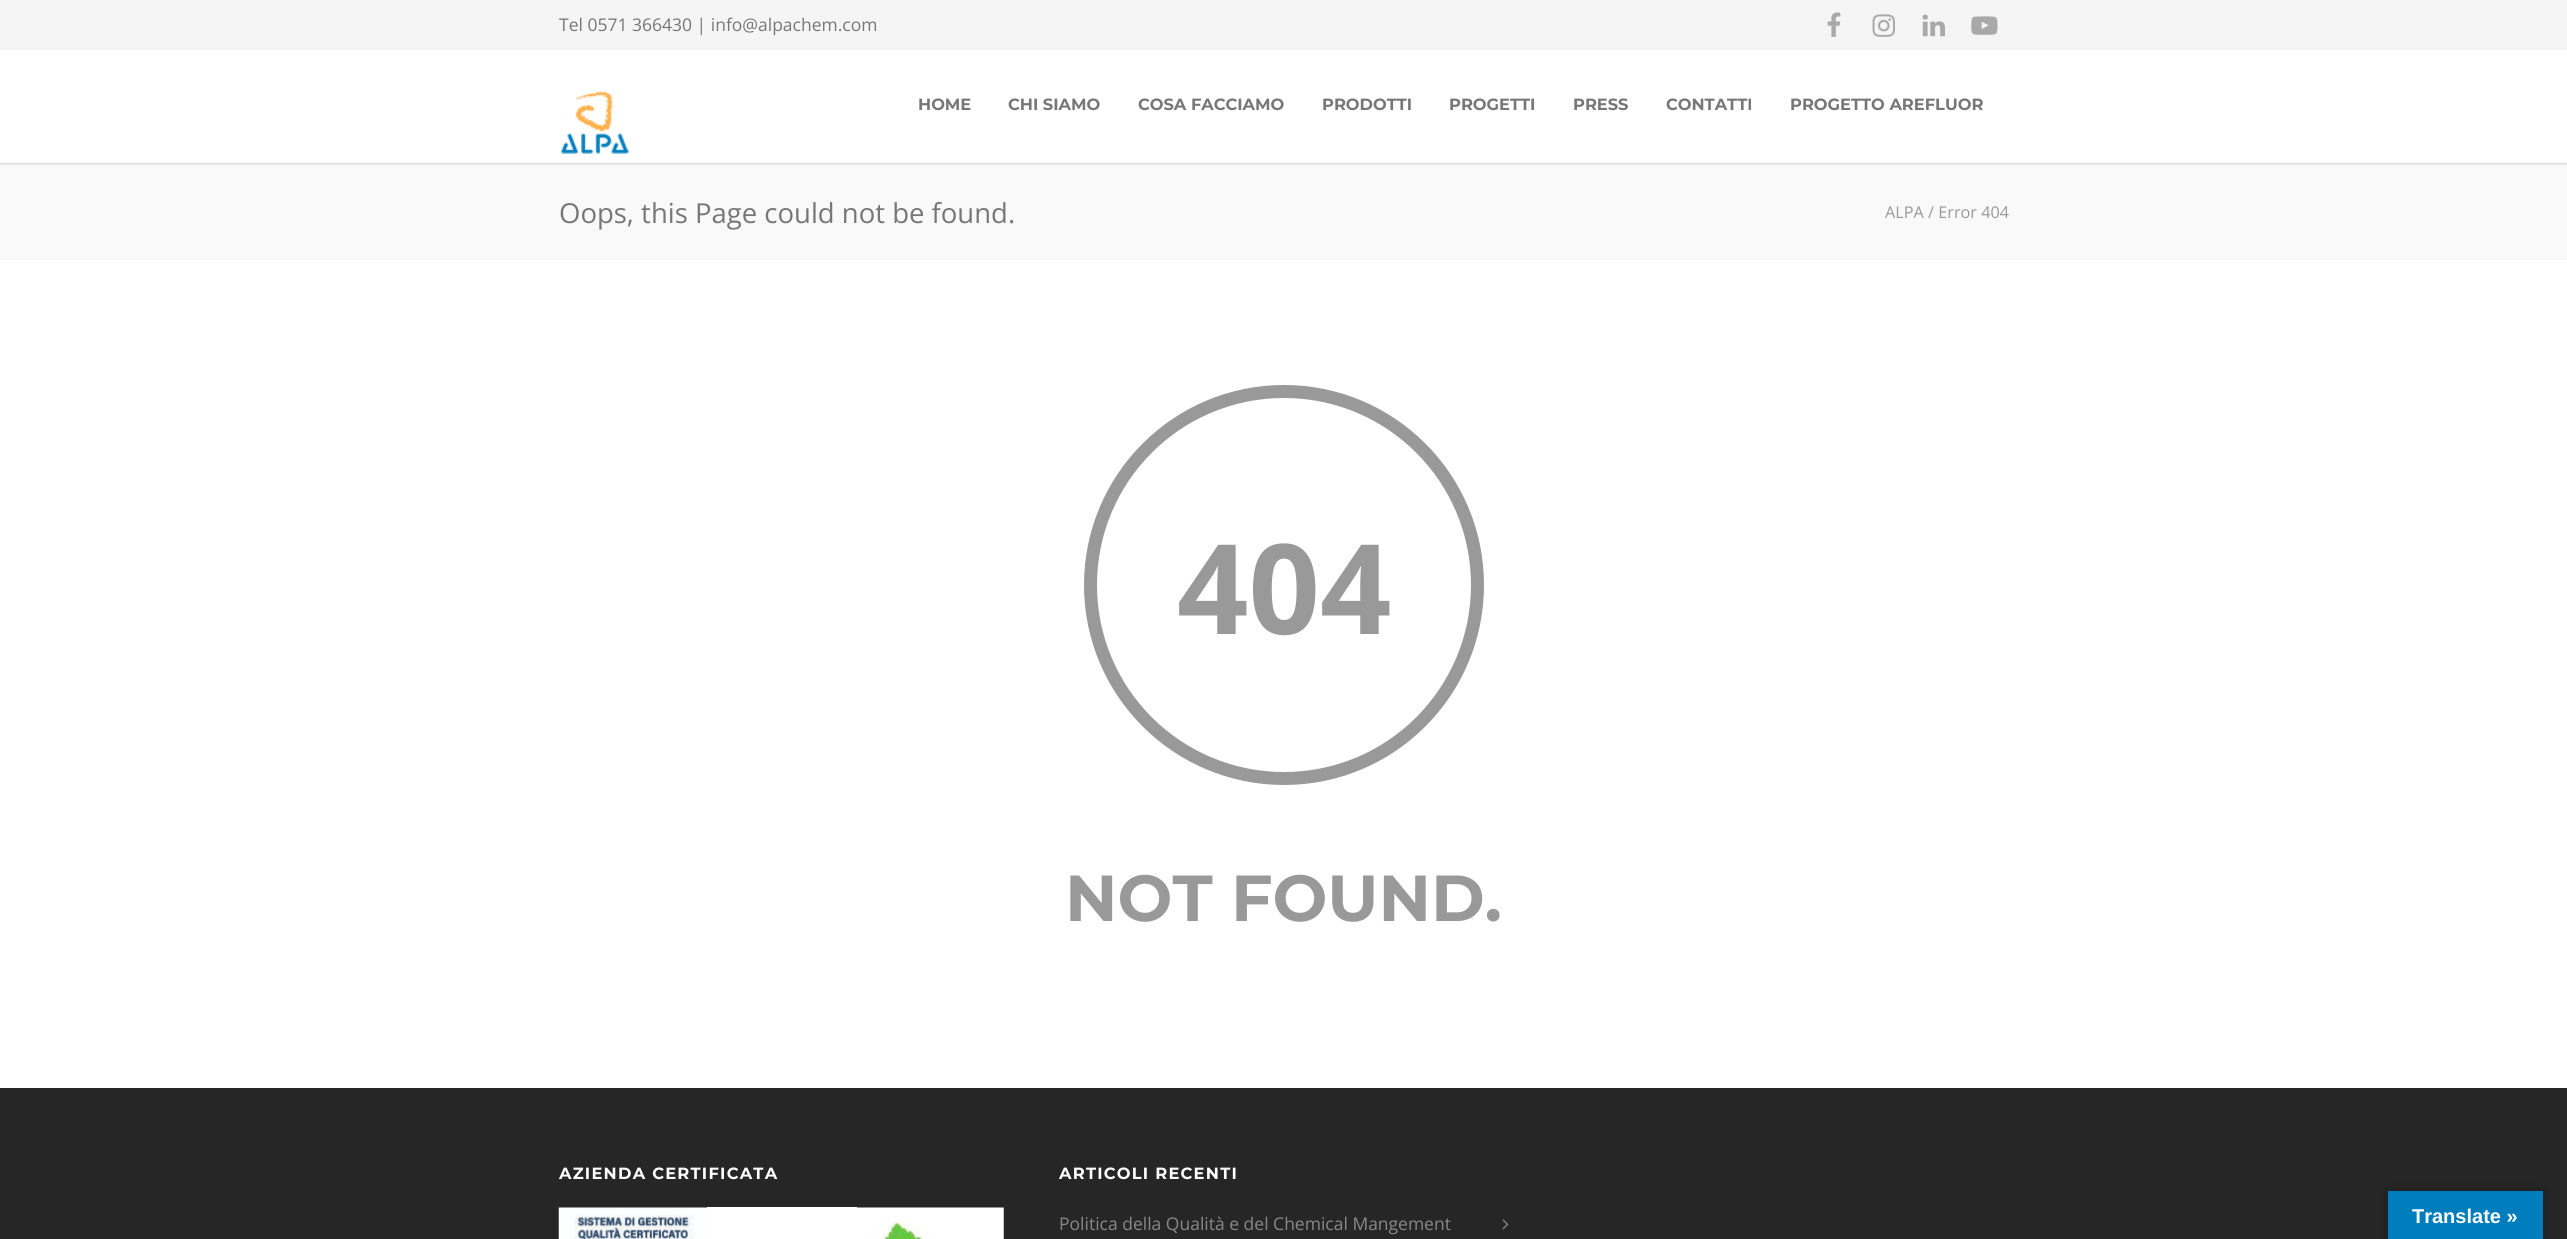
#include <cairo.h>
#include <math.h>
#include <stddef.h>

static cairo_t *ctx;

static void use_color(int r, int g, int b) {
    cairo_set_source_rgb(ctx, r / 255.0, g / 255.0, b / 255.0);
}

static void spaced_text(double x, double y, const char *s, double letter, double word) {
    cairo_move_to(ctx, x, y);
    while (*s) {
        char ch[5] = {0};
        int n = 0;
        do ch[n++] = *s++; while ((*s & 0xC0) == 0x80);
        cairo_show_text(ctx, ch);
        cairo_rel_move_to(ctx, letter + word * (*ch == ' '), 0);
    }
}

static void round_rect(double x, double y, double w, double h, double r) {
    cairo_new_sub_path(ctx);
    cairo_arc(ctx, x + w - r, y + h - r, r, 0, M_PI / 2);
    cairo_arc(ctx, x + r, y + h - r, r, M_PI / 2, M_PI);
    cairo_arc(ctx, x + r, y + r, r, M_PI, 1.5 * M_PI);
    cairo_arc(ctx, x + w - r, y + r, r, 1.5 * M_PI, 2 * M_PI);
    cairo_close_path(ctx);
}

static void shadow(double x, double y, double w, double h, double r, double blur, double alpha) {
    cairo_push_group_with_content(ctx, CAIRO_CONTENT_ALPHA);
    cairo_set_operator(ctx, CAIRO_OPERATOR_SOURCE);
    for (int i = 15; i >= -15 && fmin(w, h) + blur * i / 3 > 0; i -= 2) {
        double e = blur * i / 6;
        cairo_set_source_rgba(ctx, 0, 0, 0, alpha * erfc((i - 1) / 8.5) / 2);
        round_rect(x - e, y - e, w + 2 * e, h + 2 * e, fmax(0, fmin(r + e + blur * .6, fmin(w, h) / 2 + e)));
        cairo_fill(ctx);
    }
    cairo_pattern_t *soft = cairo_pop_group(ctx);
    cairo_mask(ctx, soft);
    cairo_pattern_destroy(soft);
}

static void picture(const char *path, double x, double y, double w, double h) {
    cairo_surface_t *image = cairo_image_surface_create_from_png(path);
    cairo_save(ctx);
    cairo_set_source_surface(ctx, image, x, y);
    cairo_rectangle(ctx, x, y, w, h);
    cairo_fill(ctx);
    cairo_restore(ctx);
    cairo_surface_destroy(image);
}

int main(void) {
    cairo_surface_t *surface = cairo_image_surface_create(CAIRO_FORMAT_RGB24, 2567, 1239);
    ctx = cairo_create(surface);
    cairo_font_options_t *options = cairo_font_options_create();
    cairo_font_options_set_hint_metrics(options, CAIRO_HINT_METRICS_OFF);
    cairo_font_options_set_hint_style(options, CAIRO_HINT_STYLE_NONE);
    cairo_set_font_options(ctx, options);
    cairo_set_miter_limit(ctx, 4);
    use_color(255, 255, 255);
    cairo_paint(ctx);
    use_color(249, 249, 249);
    cairo_rectangle(ctx, 0, 163, 2567, 97);
    cairo_fill(ctx);
    use_color(0, 0, 0);
    shadow(-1, 49, 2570, 115, 0, 1, 0.16);
    use_color(245, 245, 245);
    cairo_rectangle(ctx, 0, 0, 2567, 50);
    cairo_fill(ctx);
    cairo_select_font_face(ctx, "Open Sans", CAIRO_FONT_SLANT_NORMAL, CAIRO_FONT_WEIGHT_NORMAL);
    cairo_set_font_size(ctx, 17.5);
    use_color(119, 119, 119);
    cairo_move_to(ctx, 559, 31);
    cairo_show_text(ctx, "Tel 0571 366430 | info@alpachem.com");
    picture("img1.png", 1827, 12, 14, 25);
    picture("img2.png", 1872, 14, 23, 23);
    picture("img3.png", 1922, 14, 23, 23);
    picture("img4.png", 1971, 16, 27, 19);
    use_color(255, 255, 255);
    cairo_rectangle(ctx, 0, 50, 2567, 113);
    cairo_fill(ctx);
    picture("img5.png", 561, 91, 68, 63);
    cairo_select_font_face(ctx, "Montserrat", CAIRO_FONT_SLANT_NORMAL, CAIRO_FONT_WEIGHT_BOLD);
    cairo_set_font_size(ctx, 16.25);
    use_color(119, 119, 119);
    cairo_move_to(ctx, 918, 110);
    cairo_show_text(ctx, "HOME");
    cairo_move_to(ctx, 1008, 110);
    cairo_show_text(ctx, "CHI SIAMO");
    cairo_move_to(ctx, 1138, 110);
    cairo_show_text(ctx, "COSA FACCIAMO");
    cairo_move_to(ctx, 1322, 110);
    cairo_show_text(ctx, "PRODOTTI");
    cairo_move_to(ctx, 1449, 110);
    cairo_show_text(ctx, "PROGETTI");
    cairo_move_to(ctx, 1573, 110);
    cairo_show_text(ctx, "PRESS");
    cairo_move_to(ctx, 1666, 110);
    cairo_show_text(ctx, "CONTATTI");
    cairo_move_to(ctx, 1790, 110);
    cairo_show_text(ctx, "PROGETTO AREFLUOR");
    cairo_select_font_face(ctx, "Open Sans", CAIRO_FONT_SLANT_NORMAL, CAIRO_FONT_WEIGHT_NORMAL);
    cairo_set_font_size(ctx, 27.5);
    cairo_move_to(ctx, 559, 223);
    cairo_show_text(ctx, "Oops, this Page could not be found.");
    cairo_set_font_size(ctx, 16.25);
    use_color(153, 153, 153);
    cairo_move_to(ctx, 1885, 218);
    cairo_show_text(ctx, "ALPA / Error 404");
    cairo_new_path(ctx);
    cairo_arc(ctx, 1284, 585, 193.5, 0, 2 * M_PI);
    cairo_set_line_width(ctx, 13);
    cairo_stroke(ctx);
    cairo_select_font_face(ctx, "Open Sans", CAIRO_FONT_SLANT_NORMAL, CAIRO_FONT_WEIGHT_BOLD);
    cairo_set_font_size(ctx, 125);
    cairo_move_to(ctx, 1177, 634);
    cairo_show_text(ctx, "404");
    cairo_select_font_face(ctx, "Montserrat", CAIRO_FONT_SLANT_NORMAL, CAIRO_FONT_WEIGHT_BOLD);
    cairo_set_font_size(ctx, 65);
    cairo_move_to(ctx, 1065, 921);
    cairo_show_text(ctx, "NOT FOUND.");
    use_color(38, 38, 38);
    cairo_rectangle(ctx, 0, 1088, 2567, 151);
    cairo_fill(ctx);
    cairo_set_font_size(ctx, 16.25);
    use_color(255, 255, 255);
    spaced_text(559, 1179, "AZIENDA CERTIFICATA", 1.25, 0);
    picture("img6.png", 558, 1207, 149, 32);
    cairo_rectangle(ctx, 707, 1207, 150, 32);
    cairo_fill(ctx);
    picture("img7.png", 857, 1207, 147, 32);
    spaced_text(1059, 1179, "ARTICOLI RECENTI", 1.25, 0);
    cairo_select_font_face(ctx, "Open Sans", CAIRO_FONT_SLANT_NORMAL, CAIRO_FONT_WEIGHT_NORMAL);
    cairo_set_font_size(ctx, 17.5);
    use_color(136, 136, 136);
    cairo_move_to(ctx, 1059, 1230);
    cairo_show_text(ctx, "Politica della Qualità e del Chemical Mangement");
    picture("img8.png", 1502, 1219, 7, 11);
    use_color(0, 0, 0);
    shadow(2388, 1191, 155, 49, 0, 5.5, 0.3);
    use_color(0, 125, 189);
    cairo_rectangle(ctx, 2388, 1191, 155, 48);
    cairo_fill(ctx);
    cairo_select_font_face(ctx, "Liberation Sans", CAIRO_FONT_SLANT_NORMAL, CAIRO_FONT_WEIGHT_BOLD);
    cairo_set_font_size(ctx, 20);
    use_color(255, 255, 255);
    cairo_move_to(ctx, 2412, 1223);
    cairo_show_text(ctx, "Translate »");
    cairo_surface_write_to_png(surface, "result.png");
    cairo_font_options_destroy(options);
    cairo_destroy(ctx);
    cairo_surface_destroy(surface);
    return 0;
}
